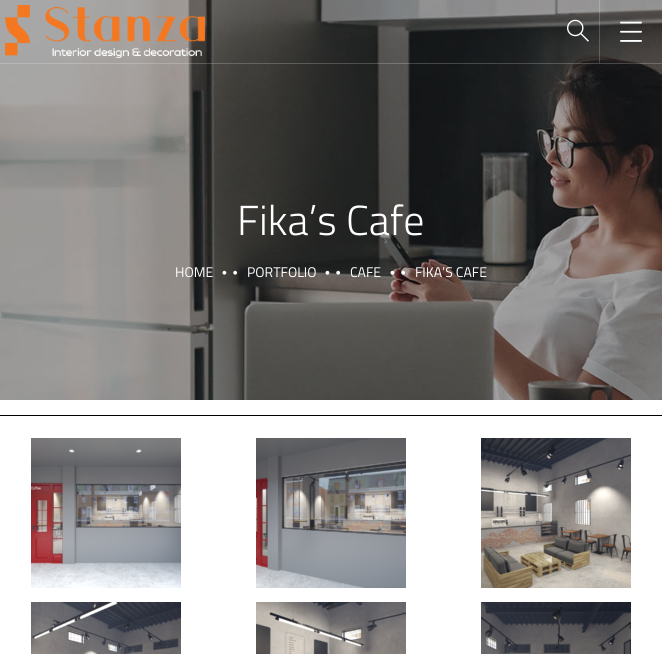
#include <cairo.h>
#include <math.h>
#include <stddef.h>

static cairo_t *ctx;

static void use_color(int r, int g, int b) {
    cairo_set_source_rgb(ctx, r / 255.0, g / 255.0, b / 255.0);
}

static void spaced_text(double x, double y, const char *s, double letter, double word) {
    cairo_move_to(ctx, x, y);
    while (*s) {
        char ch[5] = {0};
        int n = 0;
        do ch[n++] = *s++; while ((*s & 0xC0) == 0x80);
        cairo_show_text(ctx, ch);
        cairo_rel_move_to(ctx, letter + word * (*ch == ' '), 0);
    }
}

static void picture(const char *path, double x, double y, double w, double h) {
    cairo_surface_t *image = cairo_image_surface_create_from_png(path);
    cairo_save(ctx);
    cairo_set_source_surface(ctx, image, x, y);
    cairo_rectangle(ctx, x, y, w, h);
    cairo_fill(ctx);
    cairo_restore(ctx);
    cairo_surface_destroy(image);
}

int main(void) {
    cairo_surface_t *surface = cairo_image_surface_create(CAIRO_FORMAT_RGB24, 662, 654);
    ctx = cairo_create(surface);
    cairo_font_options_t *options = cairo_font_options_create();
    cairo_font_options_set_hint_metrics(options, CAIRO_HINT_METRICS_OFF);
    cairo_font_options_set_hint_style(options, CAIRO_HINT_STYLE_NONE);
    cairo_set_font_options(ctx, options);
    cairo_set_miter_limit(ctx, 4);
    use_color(255, 255, 255);
    cairo_paint(ctx);
    picture("img4.png", 0, 0, 662, 400);
    cairo_set_source_rgba(ctx, 1, 1, 1, 0.2);
    cairo_rectangle(ctx, 0, 63, 662, 1);
    cairo_fill(ctx);
    picture("img1.png", 5, 5, 200, 53);
    picture("img2.png", 567, 19, 22, 23);
    cairo_rectangle(ctx, 599, 0, 1, 63);
    cairo_fill(ctx);
    picture("img3.png", 620, 21, 22, 21);
    cairo_select_font_face(ctx, "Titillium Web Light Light", CAIRO_FONT_SLANT_NORMAL, CAIRO_FONT_WEIGHT_NORMAL);
    cairo_set_font_size(ctx, 42);
    use_color(255, 255, 255);
    cairo_move_to(ctx, 237, 235);
    cairo_show_text(ctx, "Fika’s Cafe");
    cairo_select_font_face(ctx, "Titillium Web", CAIRO_FONT_SLANT_NORMAL, CAIRO_FONT_WEIGHT_NORMAL);
    cairo_set_font_size(ctx, 14);
    cairo_move_to(ctx, 175, 277);
    cairo_show_text(ctx, "HOME");
    cairo_select_font_face(ctx, "Josefin Sans Medium", CAIRO_FONT_SLANT_NORMAL, CAIRO_FONT_WEIGHT_NORMAL);
    spaced_text(221, 277, "••", 4, 0);
    cairo_select_font_face(ctx, "Titillium Web", CAIRO_FONT_SLANT_NORMAL, CAIRO_FONT_WEIGHT_NORMAL);
    cairo_move_to(ctx, 247, 277);
    cairo_show_text(ctx, "PORTFOLIO");
    cairo_select_font_face(ctx, "Josefin Sans Medium", CAIRO_FONT_SLANT_NORMAL, CAIRO_FONT_WEIGHT_NORMAL);
    spaced_text(324, 277, "••", 4, 0);
    cairo_select_font_face(ctx, "Titillium Web", CAIRO_FONT_SLANT_NORMAL, CAIRO_FONT_WEIGHT_NORMAL);
    cairo_move_to(ctx, 350, 277);
    cairo_show_text(ctx, "CAFE");
    cairo_select_font_face(ctx, "Josefin Sans Medium", CAIRO_FONT_SLANT_NORMAL, CAIRO_FONT_WEIGHT_NORMAL);
    spaced_text(389, 277, "••", 4, 0);
    cairo_select_font_face(ctx, "Titillium Web", CAIRO_FONT_SLANT_NORMAL, CAIRO_FONT_WEIGHT_NORMAL);
    cairo_move_to(ctx, 415, 277);
    cairo_show_text(ctx, "FIKA’S CAFE");
    use_color(0, 0, 0);
    cairo_rectangle(ctx, 0, 415, 662, 1);
    cairo_fill(ctx);
    picture("img5.png", 31, 438, 150, 150);
    picture("img6.png", 256, 438, 150, 150);
    picture("img7.png", 481, 438, 150, 150);
    picture("img8.png", 31, 602, 150, 52);
    picture("img9.png", 256, 602, 150, 52);
    picture("img10.png", 481, 602, 150, 52);
    cairo_surface_write_to_png(surface, "result.png");
    cairo_font_options_destroy(options);
    cairo_destroy(ctx);
    cairo_surface_destroy(surface);
    return 0;
}
